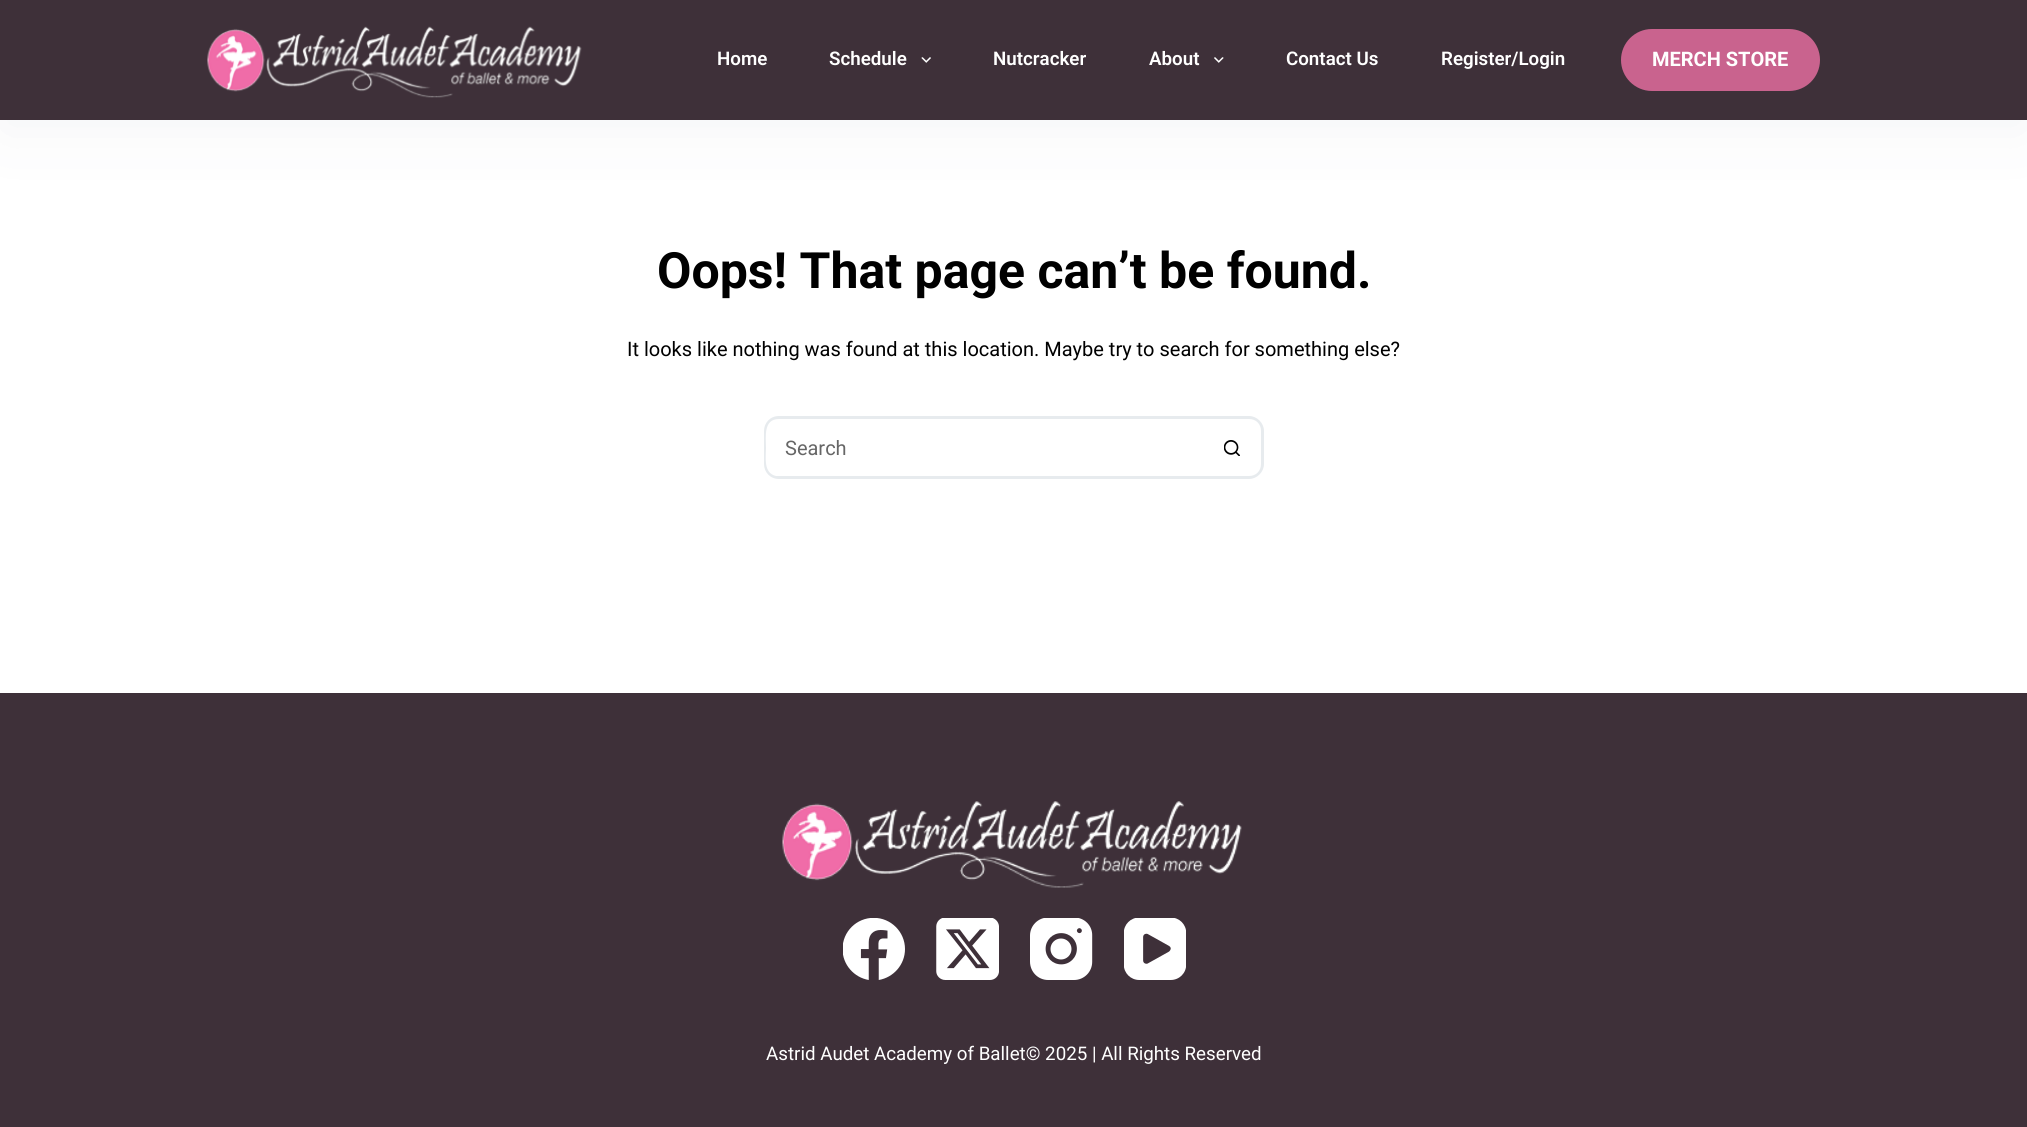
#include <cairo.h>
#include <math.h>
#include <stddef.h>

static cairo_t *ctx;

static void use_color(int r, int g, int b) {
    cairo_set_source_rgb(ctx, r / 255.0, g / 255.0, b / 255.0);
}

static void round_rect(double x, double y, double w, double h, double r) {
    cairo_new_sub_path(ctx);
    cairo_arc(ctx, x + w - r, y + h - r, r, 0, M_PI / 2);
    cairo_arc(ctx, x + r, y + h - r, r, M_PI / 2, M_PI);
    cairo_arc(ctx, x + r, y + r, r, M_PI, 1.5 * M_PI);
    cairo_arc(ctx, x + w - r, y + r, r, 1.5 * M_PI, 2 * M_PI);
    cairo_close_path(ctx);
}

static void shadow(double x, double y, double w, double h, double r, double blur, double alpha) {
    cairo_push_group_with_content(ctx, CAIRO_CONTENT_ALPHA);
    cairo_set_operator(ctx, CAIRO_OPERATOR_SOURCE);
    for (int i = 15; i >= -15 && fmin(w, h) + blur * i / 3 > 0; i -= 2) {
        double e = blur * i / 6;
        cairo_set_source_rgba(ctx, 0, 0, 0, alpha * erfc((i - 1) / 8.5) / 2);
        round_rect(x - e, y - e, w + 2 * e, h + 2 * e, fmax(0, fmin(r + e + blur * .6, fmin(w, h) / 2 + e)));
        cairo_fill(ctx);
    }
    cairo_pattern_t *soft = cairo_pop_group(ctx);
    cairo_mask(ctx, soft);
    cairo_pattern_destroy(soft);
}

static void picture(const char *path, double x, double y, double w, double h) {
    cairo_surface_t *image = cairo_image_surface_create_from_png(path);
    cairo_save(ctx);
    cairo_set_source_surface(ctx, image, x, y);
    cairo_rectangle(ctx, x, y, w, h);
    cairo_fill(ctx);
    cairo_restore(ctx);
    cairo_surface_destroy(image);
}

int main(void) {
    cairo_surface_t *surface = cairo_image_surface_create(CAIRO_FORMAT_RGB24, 2027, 1127);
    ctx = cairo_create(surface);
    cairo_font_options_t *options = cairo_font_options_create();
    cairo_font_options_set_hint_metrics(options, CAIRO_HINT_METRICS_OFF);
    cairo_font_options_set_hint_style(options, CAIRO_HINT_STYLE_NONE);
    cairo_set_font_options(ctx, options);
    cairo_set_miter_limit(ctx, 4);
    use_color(255, 255, 255);
    cairo_paint(ctx);
    use_color(44, 62, 80);
    shadow(0, 13, 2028, 120, 0, 31, 0.05);
    use_color(62, 48, 57);
    cairo_rectangle(ctx, 0, 0, 2027, 120);
    cairo_fill(ctx);
    picture("img1.png", 207, 26, 375, 72);
    cairo_select_font_face(ctx, "Roboto SemiBold", CAIRO_FONT_SLANT_NORMAL, CAIRO_FONT_WEIGHT_NORMAL);
    cairo_set_font_size(ctx, 18.75);
    use_color(255, 255, 255);
    cairo_move_to(ctx, 717, 65);
    cairo_show_text(ctx, "Home");
    cairo_move_to(ctx, 829, 65);
    cairo_show_text(ctx, "Schedule");
    picture("img2.png", 921, 57, 10, 6);
    cairo_move_to(ctx, 993, 65);
    cairo_show_text(ctx, "Nutcracker");
    cairo_move_to(ctx, 1149, 65);
    cairo_show_text(ctx, "About");
    picture("img3.png", 1214, 57, 10, 6);
    cairo_move_to(ctx, 1286, 65);
    cairo_show_text(ctx, "Contact Us");
    cairo_move_to(ctx, 1441, 65);
    cairo_show_text(ctx, "Register/Login");
    use_color(201, 99, 142);
    round_rect(1621, 29, 199, 62, 31);
    cairo_fill(ctx);
    cairo_select_font_face(ctx, "Roboto", CAIRO_FONT_SLANT_NORMAL, CAIRO_FONT_WEIGHT_BOLD);
    cairo_set_font_size(ctx, 20);
    use_color(255, 255, 255);
    cairo_move_to(ctx, 1652, 66);
    cairo_show_text(ctx, "MERCH STORE");
    cairo_set_font_size(ctx, 50);
    use_color(0, 0, 0);
    cairo_move_to(ctx, 657, 288);
    cairo_show_text(ctx, "Oops! That page can’t be found.");
    cairo_select_font_face(ctx, "Roboto", CAIRO_FONT_SLANT_NORMAL, CAIRO_FONT_WEIGHT_NORMAL);
    cairo_set_font_size(ctx, 20);
    cairo_move_to(ctx, 627, 356);
    cairo_show_text(ctx, "It looks like nothing was found at this location. Maybe try to search for something else?");
    use_color(231, 235, 238);
    cairo_set_fill_rule(ctx, CAIRO_FILL_RULE_EVEN_ODD);
    cairo_new_path(ctx);
    cairo_move_to(ctx, 779, 416);
    cairo_line_to(ctx, 1201, 416);
    cairo_line_to(ctx, 1201, 479);
    cairo_line_to(ctx, 779, 479);
    cairo_curve_to(ctx, 770, 479, 764, 472, 764, 464);
    cairo_line_to(ctx, 764, 431);
    cairo_curve_to(ctx, 764, 423, 770, 416, 779, 416);
    cairo_close_path(ctx);
    cairo_move_to(ctx, 779, 419);
    cairo_line_to(ctx, 1201, 419);
    cairo_line_to(ctx, 1201, 476);
    cairo_line_to(ctx, 776, 476);
    cairo_curve_to(ctx, 763, 473, 766, 457, 766, 448);
    cairo_curve_to(ctx, 766, 437, 763, 419, 779, 419);
    cairo_close_path(ctx);
    cairo_fill(ctx);
    use_color(102, 102, 102);
    cairo_move_to(ctx, 785, 455);
    cairo_show_text(ctx, "Search");
    use_color(231, 235, 238);
    cairo_new_path(ctx);
    cairo_move_to(ctx, 1201, 416);
    cairo_line_to(ctx, 1249, 416);
    cairo_curve_to(ctx, 1257, 416, 1264, 423, 1264, 431);
    cairo_line_to(ctx, 1264, 464);
    cairo_curve_to(ctx, 1264, 472, 1257, 479, 1249, 479);
    cairo_line_to(ctx, 1201, 479);
    cairo_close_path(ctx);
    cairo_move_to(ctx, 1201, 419);
    cairo_line_to(ctx, 1249, 419);
    cairo_curve_to(ctx, 1256, 419, 1261, 424, 1261, 431);
    cairo_line_to(ctx, 1261, 464);
    cairo_curve_to(ctx, 1261, 471, 1256, 476, 1249, 476);
    cairo_line_to(ctx, 1201, 476);
    cairo_close_path(ctx);
    cairo_fill(ctx);
    picture("img4.png", 1224, 440, 16, 16);
    use_color(62, 48, 57);
    cairo_rectangle(ctx, 0, 693, 2027, 434);
    cairo_fill(ctx);
    picture("img5.png", 782, 801, 460, 87);
    picture("img6.png", 843, 918, 62, 62);
    picture("img7.png", 936, 918, 63, 62);
    picture("img8.png", 1030, 918, 63, 62);
    picture("img9.png", 1124, 918, 62, 62);
    cairo_set_font_size(ctx, 18.75);
    use_color(255, 255, 255);
    cairo_move_to(ctx, 766, 1060);
    cairo_show_text(ctx, "Astrid Audet Academy of Ballet© 2025 | All Rights Reserved");
    cairo_surface_write_to_png(surface, "result.png");
    cairo_font_options_destroy(options);
    cairo_destroy(ctx);
    cairo_surface_destroy(surface);
    return 0;
}
